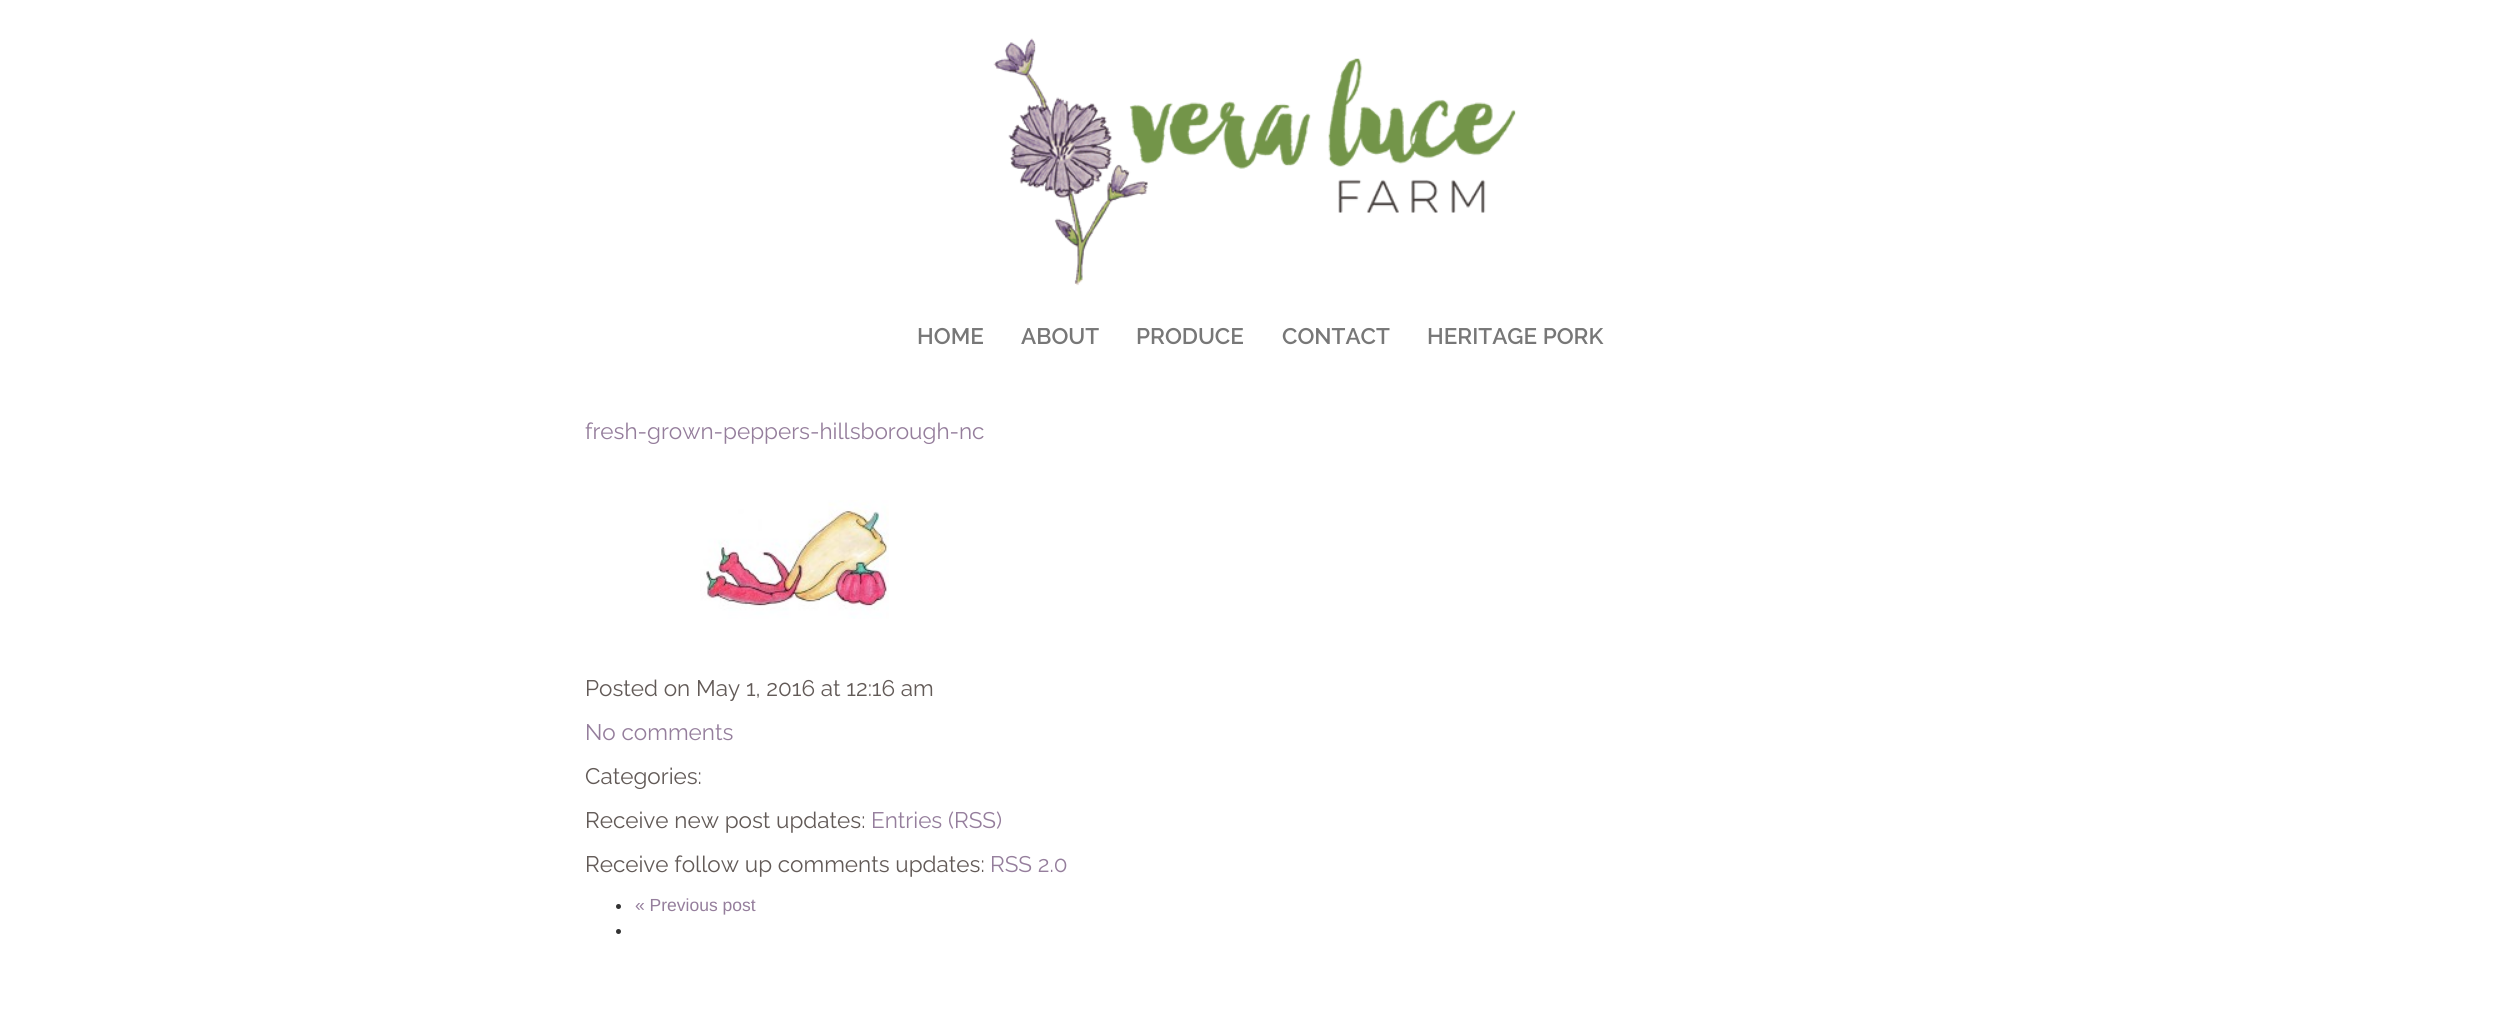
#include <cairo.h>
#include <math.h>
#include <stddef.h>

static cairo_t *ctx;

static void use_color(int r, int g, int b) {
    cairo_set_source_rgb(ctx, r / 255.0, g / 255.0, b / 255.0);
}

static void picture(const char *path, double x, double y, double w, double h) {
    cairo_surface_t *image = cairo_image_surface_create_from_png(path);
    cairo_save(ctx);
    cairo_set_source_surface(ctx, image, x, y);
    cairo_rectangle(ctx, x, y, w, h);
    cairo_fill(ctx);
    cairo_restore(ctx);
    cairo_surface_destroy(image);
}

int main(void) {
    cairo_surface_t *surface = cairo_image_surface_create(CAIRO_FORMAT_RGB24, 2520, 1030);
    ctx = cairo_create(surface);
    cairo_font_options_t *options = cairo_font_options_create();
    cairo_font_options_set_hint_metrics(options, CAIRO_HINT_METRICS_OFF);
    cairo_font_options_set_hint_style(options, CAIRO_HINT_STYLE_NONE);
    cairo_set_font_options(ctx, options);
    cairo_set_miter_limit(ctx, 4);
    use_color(255, 255, 255);
    cairo_paint(ctx);
    picture("img1.png", 993, 38, 523, 248);
    cairo_select_font_face(ctx, "Raleway SemiBold", CAIRO_FONT_SLANT_NORMAL, CAIRO_FONT_WEIGHT_NORMAL);
    cairo_set_font_size(ctx, 22.5);
    use_color(119, 119, 119);
    cairo_move_to(ctx, 917, 344);
    cairo_show_text(ctx, "HOME");
    cairo_move_to(ctx, 1021, 344);
    cairo_show_text(ctx, "ABOUT");
    cairo_move_to(ctx, 1136, 344);
    cairo_show_text(ctx, "PRODUCE");
    cairo_move_to(ctx, 1282, 344);
    cairo_show_text(ctx, "CONTACT");
    cairo_move_to(ctx, 1427, 344);
    cairo_show_text(ctx, "HERITAGE PORK");
    cairo_select_font_face(ctx, "Raleway", CAIRO_FONT_SLANT_NORMAL, CAIRO_FONT_WEIGHT_NORMAL);
    use_color(149, 126, 156);
    cairo_move_to(ctx, 585, 439);
    cairo_show_text(ctx, "fresh-grown-peppers-hillsborough-nc");
    picture("img2.png", 700, 500, 189, 119);
    use_color(98, 90, 87);
    cairo_move_to(ctx, 585, 696);
    cairo_show_text(ctx, "Posted on May 1, 2016 at 12:16 am");
    use_color(149, 126, 156);
    cairo_move_to(ctx, 585, 740);
    cairo_show_text(ctx, "No comments");
    use_color(98, 90, 87);
    cairo_move_to(ctx, 585, 784);
    cairo_show_text(ctx, "Categories:");
    cairo_move_to(ctx, 585, 828);
    cairo_show_text(ctx, "Receive new post updates:");
    use_color(149, 126, 156);
    cairo_move_to(ctx, 871, 828);
    cairo_show_text(ctx, "Entries (RSS)");
    use_color(98, 90, 87);
    cairo_move_to(ctx, 585, 872);
    cairo_show_text(ctx, "Receive follow up comments updates:");
    use_color(149, 126, 156);
    cairo_move_to(ctx, 990, 872);
    cairo_show_text(ctx, "RSS 2.0");
    use_color(51, 51, 51);
    cairo_new_path(ctx);
    cairo_arc(ctx, 618.5, 906.5, 2.5, 0, 2 * M_PI);
    cairo_fill(ctx);
    cairo_select_font_face(ctx, "Liberation Sans", CAIRO_FONT_SLANT_NORMAL, CAIRO_FONT_WEIGHT_NORMAL);
    cairo_set_font_size(ctx, 17.5);
    use_color(149, 126, 156);
    cairo_move_to(ctx, 635, 911);
    cairo_show_text(ctx, "« Previous post");
    use_color(51, 51, 51);
    cairo_new_path(ctx);
    cairo_arc(ctx, 618.5, 931.5, 2.5, 0, 2 * M_PI);
    cairo_fill(ctx);
    cairo_surface_write_to_png(surface, "result.png");
    cairo_font_options_destroy(options);
    cairo_destroy(ctx);
    cairo_surface_destroy(surface);
    return 0;
}
